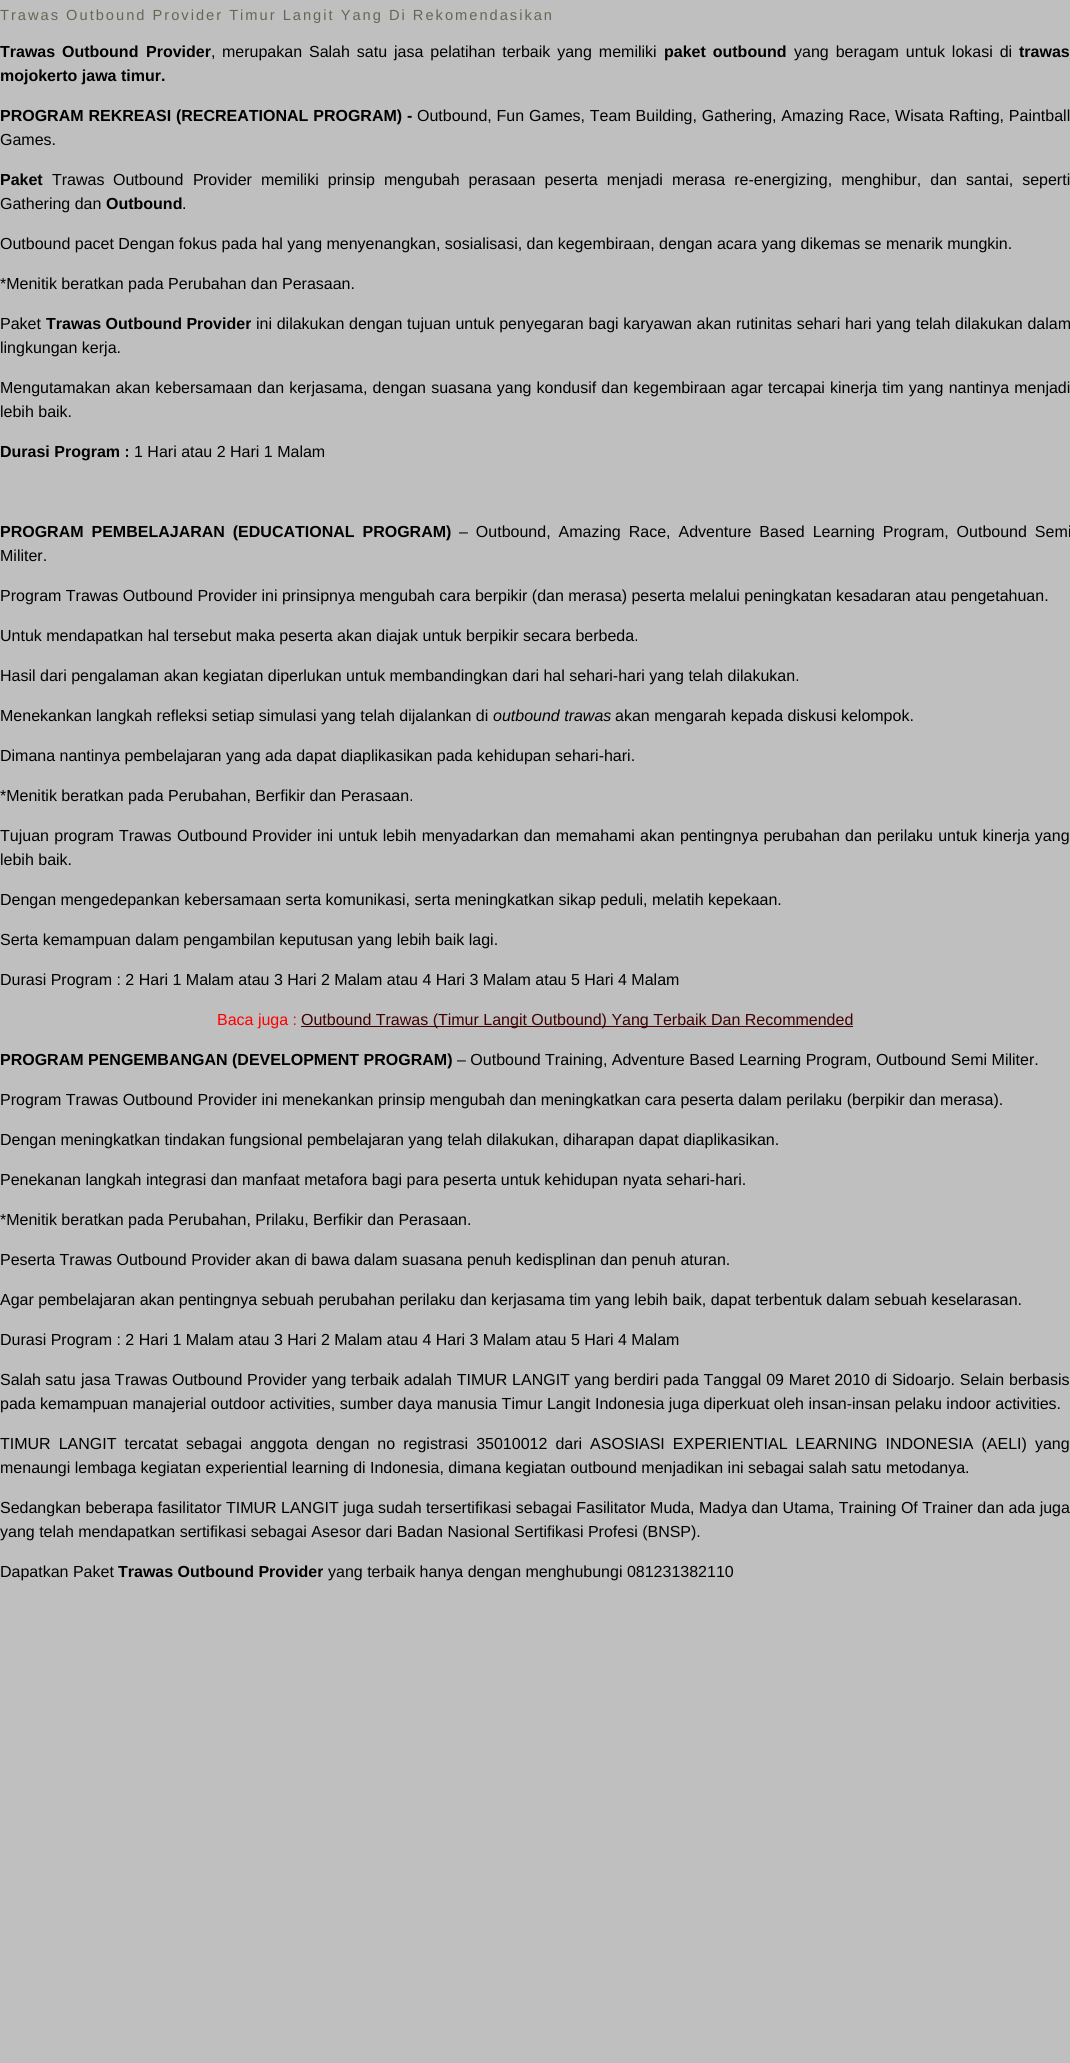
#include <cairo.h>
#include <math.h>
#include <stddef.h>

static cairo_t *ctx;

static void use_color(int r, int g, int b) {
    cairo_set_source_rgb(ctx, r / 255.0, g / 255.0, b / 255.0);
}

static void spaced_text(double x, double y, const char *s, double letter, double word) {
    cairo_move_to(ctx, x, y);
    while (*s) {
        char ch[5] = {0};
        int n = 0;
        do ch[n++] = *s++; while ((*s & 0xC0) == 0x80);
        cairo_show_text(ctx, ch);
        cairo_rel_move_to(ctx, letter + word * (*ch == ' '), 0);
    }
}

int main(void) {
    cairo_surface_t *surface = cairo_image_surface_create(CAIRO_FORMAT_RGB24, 1070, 2063);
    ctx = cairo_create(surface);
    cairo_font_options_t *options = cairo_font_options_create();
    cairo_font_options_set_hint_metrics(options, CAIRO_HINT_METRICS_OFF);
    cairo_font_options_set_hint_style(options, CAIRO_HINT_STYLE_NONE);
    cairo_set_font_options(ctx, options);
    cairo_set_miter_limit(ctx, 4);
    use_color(191, 191, 191);
    cairo_paint(ctx);
    cairo_select_font_face(ctx, "Liberation Sans", CAIRO_FONT_SLANT_NORMAL, CAIRO_FONT_WEIGHT_NORMAL);
    cairo_set_font_size(ctx, 14.65);
    use_color(102, 102, 85);
    spaced_text(0, 20, "Trawas Outbound Provider Timur Langit Yang Di Rekomendasikan", 2, 0);
    cairo_select_font_face(ctx, "Liberation Sans", CAIRO_FONT_SLANT_NORMAL, CAIRO_FONT_WEIGHT_BOLD);
    cairo_set_font_size(ctx, 16);
    use_color(0, 0, 0);
    cairo_move_to(ctx, 0, 57);
    cairo_show_text(ctx, "Trawas");
    cairo_move_to(ctx, 62, 57);
    cairo_show_text(ctx, "Outbound");
    cairo_move_to(ctx, 146, 57);
    cairo_show_text(ctx, "Provider");
    cairo_select_font_face(ctx, "Liberation Sans", CAIRO_FONT_SLANT_NORMAL, CAIRO_FONT_WEIGHT_NORMAL);
    cairo_move_to(ctx, 211, 57);
    cairo_show_text(ctx, ",");
    spaced_text(222, 57, "merupakan Salah satu jasa pelatihan terbaik yang memiliki", 0, 2.5);
    cairo_select_font_face(ctx, "Liberation Sans", CAIRO_FONT_SLANT_NORMAL, CAIRO_FONT_WEIGHT_BOLD);
    spaced_text(664, 57, "paket outbound", 0, 2.5);
    cairo_select_font_face(ctx, "Liberation Sans", CAIRO_FONT_SLANT_NORMAL, CAIRO_FONT_WEIGHT_NORMAL);
    spaced_text(794, 57, "yang beragam untuk lokasi di", 0, 2.5);
    cairo_select_font_face(ctx, "Liberation Sans", CAIRO_FONT_SLANT_NORMAL, CAIRO_FONT_WEIGHT_BOLD);
    cairo_move_to(ctx, 1019, 57);
    cairo_show_text(ctx, "trawas");
    cairo_move_to(ctx, 0, 81);
    cairo_show_text(ctx, "mojokerto jawa timur.");
    spaced_text(0, 121, "PROGRAM REKREASI (RECREATIONAL PROGRAM)", 0, 0.4);
    cairo_move_to(ctx, 407, 121);
    cairo_show_text(ctx, "-");
    cairo_select_font_face(ctx, "Liberation Sans", CAIRO_FONT_SLANT_NORMAL, CAIRO_FONT_WEIGHT_NORMAL);
    spaced_text(417, 121, "Outbound, Fun Games, Team Building, Gathering, Amazing Race, Wisata Rafting, Paintball", 0, 0.4);
    cairo_move_to(ctx, 0, 145);
    cairo_show_text(ctx, "Games.");
    cairo_select_font_face(ctx, "Liberation Sans", CAIRO_FONT_SLANT_NORMAL, CAIRO_FONT_WEIGHT_BOLD);
    cairo_move_to(ctx, 0, 185);
    cairo_show_text(ctx, "Paket");
    cairo_select_font_face(ctx, "Liberation Sans", CAIRO_FONT_SLANT_NORMAL, CAIRO_FONT_WEIGHT_NORMAL);
    cairo_move_to(ctx, 52, 185);
    cairo_show_text(ctx, "Trawas");
    cairo_move_to(ctx, 113, 185);
    cairo_show_text(ctx, "Outbound");
    cairo_move_to(ctx, 193, 185);
    cairo_show_text(ctx, "P");
    spaced_text(203, 185, "rovider memiliki prinsip mengubah perasaan peserta menjadi merasa re-energizing, menghibur, dan santai, seperti", 0, 4.6);
    cairo_move_to(ctx, 0, 209);
    cairo_show_text(ctx, "Gathering dan");
    cairo_select_font_face(ctx, "Liberation Sans", CAIRO_FONT_SLANT_NORMAL, CAIRO_FONT_WEIGHT_BOLD);
    cairo_move_to(ctx, 106, 209);
    cairo_show_text(ctx, "Outbound");
    cairo_select_font_face(ctx, "Liberation Sans", CAIRO_FONT_SLANT_NORMAL, CAIRO_FONT_WEIGHT_NORMAL);
    cairo_move_to(ctx, 182, 209);
    cairo_show_text(ctx, ".");
    cairo_move_to(ctx, 0, 249);
    cairo_show_text(ctx, "Outbound pacet Dengan fokus pada hal yang menyenangkan, sosialisasi, dan kegembiraan, dengan acara yang dikemas se menarik mungkin.");
    cairo_move_to(ctx, 0, 289);
    cairo_show_text(ctx, "*Menitik beratkan pada Perubahan dan Perasaan.");
    cairo_move_to(ctx, 0, 329);
    cairo_show_text(ctx, "Paket");
    cairo_select_font_face(ctx, "Liberation Sans", CAIRO_FONT_SLANT_NORMAL, CAIRO_FONT_WEIGHT_BOLD);
    cairo_move_to(ctx, 46, 329);
    cairo_show_text(ctx, "Trawas Outbound Provider");
    cairo_select_font_face(ctx, "Liberation Sans", CAIRO_FONT_SLANT_NORMAL, CAIRO_FONT_WEIGHT_NORMAL);
    spaced_text(256, 329, "ini dilakukan dengan tujuan untuk penyegaran bagi karyawan akan rutinitas sehari hari yang telah dilakukan dalam", 0, 0.25);
    cairo_move_to(ctx, 0, 353);
    cairo_show_text(ctx, "lingkungan kerja.");
    spaced_text(0, 393, "Mengutamakan akan kebersamaan dan kerjasama, dengan suasana yang kondusif dan kegembiraan agar tercapai kinerja tim yang nantinya menjadi", 0, 0.7);
    cairo_move_to(ctx, 0, 417);
    cairo_show_text(ctx, "lebih baik.");
    cairo_select_font_face(ctx, "Liberation Sans", CAIRO_FONT_SLANT_NORMAL, CAIRO_FONT_WEIGHT_BOLD);
    cairo_move_to(ctx, 0, 457);
    cairo_show_text(ctx, "Durasi Program :");
    cairo_select_font_face(ctx, "Liberation Sans", CAIRO_FONT_SLANT_NORMAL, CAIRO_FONT_WEIGHT_NORMAL);
    cairo_move_to(ctx, 134, 457);
    cairo_show_text(ctx, "1 Hari atau 2 Hari 1 Malam");
    cairo_select_font_face(ctx, "Liberation Sans", CAIRO_FONT_SLANT_NORMAL, CAIRO_FONT_WEIGHT_BOLD);
    spaced_text(0, 537, "PROGRAM PEMBELAJARAN (EDUCATIONAL PROGRAM)", 0, 3.5);
    cairo_select_font_face(ctx, "Liberation Sans", CAIRO_FONT_SLANT_NORMAL, CAIRO_FONT_WEIGHT_NORMAL);
    spaced_text(459, 537, "– Outbound, Amazing Race, Adventure Based Learning Program, Outbound Semi", 0, 3.5);
    cairo_move_to(ctx, 0, 561);
    cairo_show_text(ctx, "Militer.");
    cairo_move_to(ctx, 0, 601);
    cairo_show_text(ctx, "Program Trawas Outbound Provider ini prinsipnya mengubah cara berpikir (dan merasa) peserta melalui peningkatan kesadaran atau pengetahuan.");
    cairo_move_to(ctx, 0, 641);
    cairo_show_text(ctx, "Untuk mendapatkan hal tersebut maka peserta akan diajak untuk berpikir secara berbeda.");
    cairo_move_to(ctx, 0, 681);
    cairo_show_text(ctx, "Hasil dari pengalaman akan kegiatan diperlukan untuk membandingkan dari hal sehari-hari yang telah dilakukan.");
    cairo_move_to(ctx, 0, 721);
    cairo_show_text(ctx, "Menekankan langkah refleksi setiap simulasi yang telah dijalankan di");
    cairo_select_font_face(ctx, "Liberation Sans", CAIRO_FONT_SLANT_ITALIC, CAIRO_FONT_WEIGHT_NORMAL);
    cairo_move_to(ctx, 493, 721);
    cairo_show_text(ctx, "outbound trawas");
    cairo_select_font_face(ctx, "Liberation Sans", CAIRO_FONT_SLANT_NORMAL, CAIRO_FONT_WEIGHT_NORMAL);
    cairo_move_to(ctx, 615, 721);
    cairo_show_text(ctx, "akan mengarah kepada diskusi kelompok.");
    cairo_move_to(ctx, 0, 761);
    cairo_show_text(ctx, "Dimana nantinya pembelajaran yang ada dapat diaplikasikan pada kehidupan sehari-hari.");
    cairo_move_to(ctx, 0, 801);
    cairo_show_text(ctx, "*Menitik beratkan pada Perubahan, Berfikir dan Perasaan.");
    spaced_text(0, 841, "Tujuan program", 0, 1);
    cairo_move_to(ctx, 119, 841);
    cairo_show_text(ctx, "Trawas");
    cairo_move_to(ctx, 177, 841);
    cairo_show_text(ctx, "Outbound");
    cairo_move_to(ctx, 252, 841);
    cairo_show_text(ctx, "P");
    spaced_text(263, 841, "rovider ini untuk lebih menyadarkan dan memahami akan pentingnya perubahan dan perilaku untuk kinerja yang", 0, 0.75);
    cairo_move_to(ctx, 0, 865);
    cairo_show_text(ctx, "lebih baik.");
    cairo_move_to(ctx, 0, 905);
    cairo_show_text(ctx, "Dengan mengedepankan kebersamaan serta komunikasi, serta meningkatkan sikap peduli, melatih kepekaan.");
    cairo_move_to(ctx, 0, 945);
    cairo_show_text(ctx, "Serta kemampuan dalam pengambilan keputusan yang lebih baik lagi.");
    cairo_move_to(ctx, 0, 985);
    cairo_show_text(ctx, "Durasi Program : 2 Hari 1 Malam atau 3 Hari 2 Malam atau 4 Hari 3 Malam atau 5 Hari 4 Malam");
    use_color(255, 0, 0);
    cairo_move_to(ctx, 217, 1025);
    cairo_show_text(ctx, "Baca juga :");
    use_color(64, 0, 0);
    cairo_rectangle(ctx, 301, 1026, 552, 1);
    cairo_fill(ctx);
    cairo_move_to(ctx, 301, 1025);
    cairo_show_text(ctx, "Outbound Trawas (Timur Langit Outbound) Yang Terbaik Dan Recommended");
    cairo_select_font_face(ctx, "Liberation Sans", CAIRO_FONT_SLANT_NORMAL, CAIRO_FONT_WEIGHT_BOLD);
    use_color(0, 0, 0);
    cairo_move_to(ctx, 0, 1065);
    cairo_show_text(ctx, "PROGRAM PENGEMBANGAN (DEVELOPMENT PROGRAM)");
    cairo_select_font_face(ctx, "Liberation Sans", CAIRO_FONT_SLANT_NORMAL, CAIRO_FONT_WEIGHT_NORMAL);
    cairo_move_to(ctx, 457, 1065);
    cairo_show_text(ctx, "– Outbound Training, Adventure Based Learning Program, Outbound Semi Militer.");
    cairo_move_to(ctx, 0, 1105);
    cairo_show_text(ctx, "Program Trawas Outbound Provider ini menekankan prinsip mengubah dan meningkatkan cara peserta dalam perilaku (berpikir dan merasa).");
    cairo_move_to(ctx, 0, 1145);
    cairo_show_text(ctx, "Dengan meningkatkan tindakan fungsional pembelajaran yang telah dilakukan, diharapan dapat diaplikasikan.");
    cairo_move_to(ctx, 0, 1185);
    cairo_show_text(ctx, "Penekanan langkah integrasi dan manfaat metafora bagi para peserta untuk kehidupan nyata sehari-hari.");
    cairo_move_to(ctx, 0, 1225);
    cairo_show_text(ctx, "*Menitik beratkan pada Perubahan, Prilaku, Berfikir dan Perasaan.");
    cairo_move_to(ctx, 0, 1265);
    cairo_show_text(ctx, "Peserta Trawas Outbound Provider akan di bawa dalam suasana penuh kedisplinan dan penuh aturan.");
    cairo_move_to(ctx, 0, 1305);
    cairo_show_text(ctx, "Agar pembelajaran akan pentingnya sebuah perubahan perilaku dan kerjasama tim yang lebih baik, dapat terbentuk dalam sebuah keselarasan.");
    cairo_move_to(ctx, 0, 1345);
    cairo_show_text(ctx, "Durasi Program : 2 Hari 1 Malam atau 3 Hari 2 Malam atau 4 Hari 3 Malam atau 5 Hari 4 Malam");
    cairo_move_to(ctx, 0, 1385);
    cairo_show_text(ctx, "Salah satu");
    cairo_move_to(ctx, 81, 1385);
    cairo_show_text(ctx, "jasa T");
    cairo_move_to(ctx, 125, 1385);
    cairo_show_text(ctx, "rawas");
    cairo_move_to(ctx, 172, 1385);
    cairo_show_text(ctx, "Outbound");
    cairo_move_to(ctx, 247, 1385);
    cairo_show_text(ctx, "P");
    spaced_text(258, 1385, "rovider yang terbaik adalah TIMUR LANGIT yang berdiri pada Tanggal 09 Maret 2010 di Sidoarjo. Selain berbasis", 0, 0.3);
    cairo_move_to(ctx, 0, 1409);
    cairo_show_text(ctx, "pada kemampuan manajerial outdoor activities, sumber daya manusia Timur Langit Indonesia juga diperkuat oleh insan-insan pelaku indoor activities.");
    spaced_text(0, 1449, "TIMUR LANGIT tercatat sebagai anggota dengan no registrasi 35010012 dari ASOSIASI EXPERIENTIAL LEARNING INDONESIA (AELI) yang", 0, 3.6);
    cairo_move_to(ctx, 0, 1473);
    cairo_show_text(ctx, "menaungi lembaga kegiatan experiential learning di Indonesia, dimana kegiatan outbound menjadikan ini sebagai salah satu metodanya.");
    cairo_move_to(ctx, 0, 1513);
    cairo_show_text(ctx, "Sedangkan beberapa fasilitator TIMUR LANGIT juga sudah tersertifikasi sebagai Fasilitator Muda, Madya dan Utama, Training Of Trainer dan ada juga");
    cairo_move_to(ctx, 0, 1537);
    cairo_show_text(ctx, "yang telah mendapatkan sertifikasi sebagai Asesor dari Badan Nasional Sertifikasi Profesi (BNSP).");
    cairo_move_to(ctx, 0, 1577);
    cairo_show_text(ctx, "Dapatkan Paket");
    cairo_select_font_face(ctx, "Liberation Sans", CAIRO_FONT_SLANT_NORMAL, CAIRO_FONT_WEIGHT_BOLD);
    cairo_move_to(ctx, 118, 1577);
    cairo_show_text(ctx, "Trawas Outbound Provider");
    cairo_select_font_face(ctx, "Liberation Sans", CAIRO_FONT_SLANT_NORMAL, CAIRO_FONT_WEIGHT_NORMAL);
    cairo_move_to(ctx, 328, 1577);
    cairo_show_text(ctx, "yang terbaik hanya dengan menghubungi 081231382110");
    cairo_surface_write_to_png(surface, "result.png");
    cairo_font_options_destroy(options);
    cairo_destroy(ctx);
    cairo_surface_destroy(surface);
    return 0;
}
